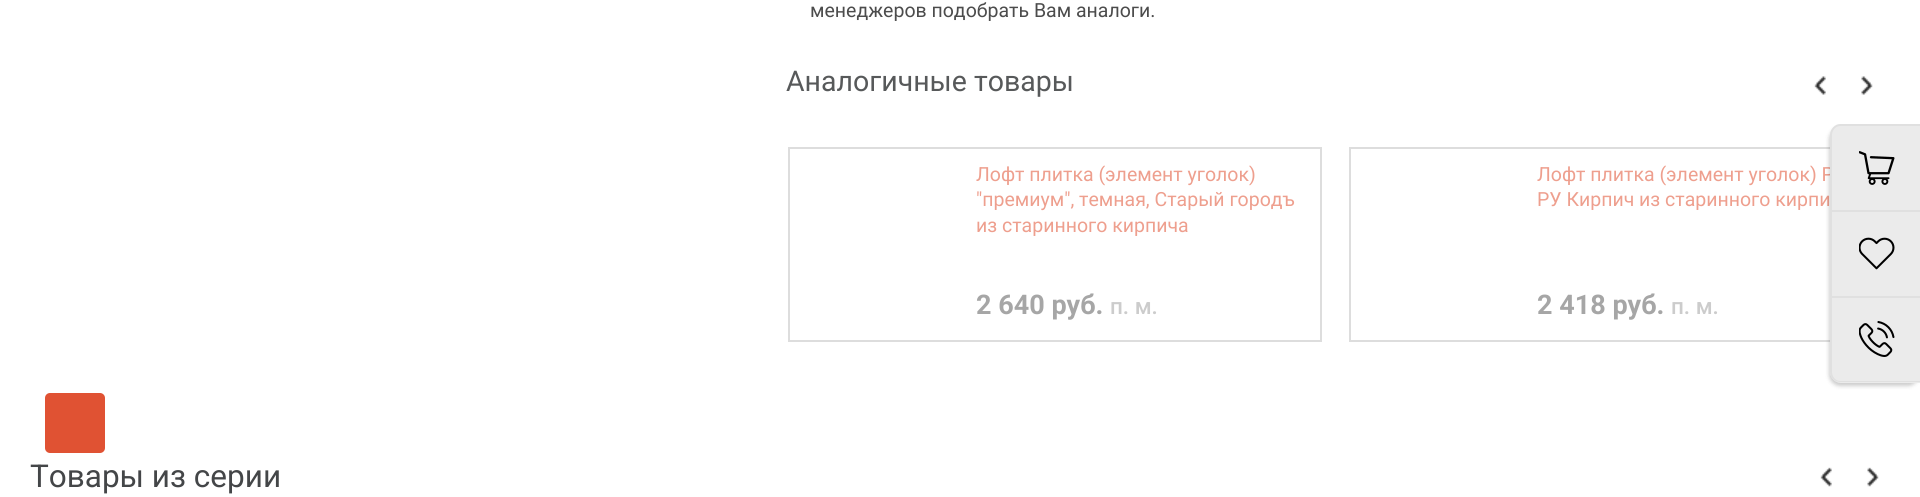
#include <cairo.h>
#include <math.h>
#include <stddef.h>

static cairo_t *ctx;

static void use_color(int r, int g, int b) {
    cairo_set_source_rgb(ctx, r / 255.0, g / 255.0, b / 255.0);
}

static void round_rect(double x, double y, double w, double h, double r) {
    cairo_new_sub_path(ctx);
    cairo_arc(ctx, x + w - r, y + h - r, r, 0, M_PI / 2);
    cairo_arc(ctx, x + r, y + h - r, r, M_PI / 2, M_PI);
    cairo_arc(ctx, x + r, y + r, r, M_PI, 1.5 * M_PI);
    cairo_arc(ctx, x + w - r, y + r, r, 1.5 * M_PI, 2 * M_PI);
    cairo_close_path(ctx);
}

static void shadow(double x, double y, double w, double h, double r, double blur, double alpha) {
    cairo_push_group_with_content(ctx, CAIRO_CONTENT_ALPHA);
    cairo_set_operator(ctx, CAIRO_OPERATOR_SOURCE);
    for (int i = 15; i >= -15 && fmin(w, h) + blur * i / 3 > 0; i -= 2) {
        double e = blur * i / 6;
        cairo_set_source_rgba(ctx, 0, 0, 0, alpha * erfc((i - 1) / 8.5) / 2);
        round_rect(x - e, y - e, w + 2 * e, h + 2 * e, fmax(0, fmin(r + e + blur * .6, fmin(w, h) / 2 + e)));
        cairo_fill(ctx);
    }
    cairo_pattern_t *soft = cairo_pop_group(ctx);
    cairo_mask(ctx, soft);
    cairo_pattern_destroy(soft);
}

static void picture(const char *path, double x, double y, double w, double h) {
    cairo_surface_t *image = cairo_image_surface_create_from_png(path);
    cairo_save(ctx);
    cairo_set_source_surface(ctx, image, x, y);
    cairo_rectangle(ctx, x, y, w, h);
    cairo_fill(ctx);
    cairo_restore(ctx);
    cairo_surface_destroy(image);
}

int main(void) {
    cairo_surface_t *surface = cairo_image_surface_create(CAIRO_FORMAT_RGB24, 1920, 497);
    ctx = cairo_create(surface);
    cairo_font_options_t *options = cairo_font_options_create();
    cairo_font_options_set_hint_metrics(options, CAIRO_HINT_METRICS_OFF);
    cairo_font_options_set_hint_style(options, CAIRO_HINT_STYLE_NONE);
    cairo_set_font_options(ctx, options);
    cairo_set_miter_limit(ctx, 4);
    use_color(255, 255, 255);
    cairo_paint(ctx);
    cairo_select_font_face(ctx, "Roboto", CAIRO_FONT_SLANT_NORMAL, CAIRO_FONT_WEIGHT_NORMAL);
    cairo_set_font_size(ctx, 19.5);
    use_color(76, 76, 76);
    cairo_move_to(ctx, 810, 17);
    cairo_show_text(ctx, "менеджеров подобрать Вам аналоги.");
    cairo_set_font_size(ctx, 28.5);
    use_color(87, 89, 90);
    cairo_move_to(ctx, 786, 91);
    cairo_show_text(ctx, "Аналогичные товары");
    picture("img1.png", 1814, 76, 12, 19);
    picture("img2.png", 1861, 76, 12, 19);
    cairo_rectangle(ctx, 789, 148, 532, 193);
    use_color(221, 221, 221);
    cairo_stroke(ctx);
    cairo_set_font_size(ctx, 19.5);
    use_color(238, 159, 142);
    cairo_move_to(ctx, 976, 181);
    cairo_show_text(ctx, "Лофт плитка (элемент уголок)");
    cairo_move_to(ctx, 976, 206);
    cairo_show_text(ctx, "\"премиум\", темная, Старый городъ");
    cairo_move_to(ctx, 976, 232);
    cairo_show_text(ctx, "из старинного кирпича");
    cairo_select_font_face(ctx, "Roboto", CAIRO_FONT_SLANT_NORMAL, CAIRO_FONT_WEIGHT_BOLD);
    cairo_set_font_size(ctx, 27);
    use_color(166, 166, 166);
    cairo_move_to(ctx, 976, 314);
    cairo_show_text(ctx, "2 640 руб.");
    cairo_select_font_face(ctx, "Roboto Medium", CAIRO_FONT_SLANT_NORMAL, CAIRO_FONT_WEIGHT_NORMAL);
    cairo_set_font_size(ctx, 22.5);
    use_color(204, 204, 204);
    cairo_move_to(ctx, 1110, 314);
    cairo_show_text(ctx, "п. м.");
    cairo_rectangle(ctx, 1350, 148, 532, 193);
    use_color(221, 221, 221);
    cairo_stroke(ctx);
    cairo_select_font_face(ctx, "Roboto", CAIRO_FONT_SLANT_NORMAL, CAIRO_FONT_WEIGHT_NORMAL);
    cairo_set_font_size(ctx, 19.5);
    use_color(238, 159, 142);
    cairo_move_to(ctx, 1537, 181);
    cairo_show_text(ctx, "Лофт плитка (элемент уголок) Р");
    cairo_move_to(ctx, 1537, 206);
    cairo_show_text(ctx, "РУ Кирпич из старинного кирпи");
    cairo_select_font_face(ctx, "Roboto", CAIRO_FONT_SLANT_NORMAL, CAIRO_FONT_WEIGHT_BOLD);
    cairo_set_font_size(ctx, 27);
    use_color(166, 166, 166);
    cairo_move_to(ctx, 1537, 314);
    cairo_show_text(ctx, "2 418 руб.");
    cairo_select_font_face(ctx, "Roboto Medium", CAIRO_FONT_SLANT_NORMAL, CAIRO_FONT_WEIGHT_NORMAL);
    cairo_set_font_size(ctx, 22.5);
    use_color(204, 204, 204);
    cairo_move_to(ctx, 1671, 314);
    cairo_show_text(ctx, "п. м.");
    cairo_select_font_face(ctx, "Roboto", CAIRO_FONT_SLANT_NORMAL, CAIRO_FONT_WEIGHT_NORMAL);
    cairo_set_font_size(ctx, 31.5);
    use_color(68, 70, 72);
    cairo_move_to(ctx, 30, 487);
    cairo_show_text(ctx, "Товары из серии");
    picture("img3.png", 1820, 467, 12, 20);
    picture("img4.png", 1867, 467, 12, 20);
    use_color(0, 0, 0);
    shadow(1829, 128, 90, 258, 11, 2, 0.2);
    use_color(235, 235, 235);
    cairo_new_path(ctx);
    cairo_move_to(ctx, 1841, 125);
    cairo_line_to(ctx, 1920, 125);
    cairo_line_to(ctx, 1920, 383);
    cairo_line_to(ctx, 1841, 383);
    cairo_curve_to(ctx, 1835, 383, 1830, 378, 1830, 372);
    cairo_line_to(ctx, 1830, 136);
    cairo_curve_to(ctx, 1830, 130, 1835, 125, 1841, 125);
    cairo_close_path(ctx);
    cairo_fill(ctx);
    use_color(224, 224, 224);
    cairo_set_fill_rule(ctx, CAIRO_FILL_RULE_EVEN_ODD);
    cairo_new_path(ctx);
    cairo_move_to(ctx, 1840, 124);
    cairo_line_to(ctx, 1920, 124);
    cairo_line_to(ctx, 1920, 212);
    cairo_line_to(ctx, 1830, 212);
    cairo_line_to(ctx, 1830, 135);
    cairo_curve_to(ctx, 1830, 129, 1835, 124, 1840, 124);
    cairo_close_path(ctx);
    cairo_move_to(ctx, 1840, 126);
    cairo_line_to(ctx, 1920, 126);
    cairo_line_to(ctx, 1920, 210);
    cairo_line_to(ctx, 1832, 210);
    cairo_line_to(ctx, 1832, 135);
    cairo_curve_to(ctx, 1832, 130, 1836, 126, 1840, 126);
    cairo_close_path(ctx);
    cairo_fill(ctx);
    picture("img5.png", 1859, 151, 36, 34);
    cairo_rectangle(ctx, 1830, 296, 90, 2);
    cairo_fill(ctx);
    cairo_rectangle(ctx, 1830, 212, 2, 85);
    cairo_fill(ctx);
    picture("img6.png", 1859, 237, 36, 33);
    cairo_new_path(ctx);
    cairo_move_to(ctx, 1830, 297);
    cairo_line_to(ctx, 1920, 297);
    cairo_line_to(ctx, 1920, 382);
    cairo_line_to(ctx, 1840, 382);
    cairo_curve_to(ctx, 1835, 382, 1830, 378, 1830, 372);
    cairo_close_path(ctx);
    cairo_move_to(ctx, 1832, 297);
    cairo_line_to(ctx, 1920, 297);
    cairo_line_to(ctx, 1920, 381);
    cairo_line_to(ctx, 1840, 381);
    cairo_curve_to(ctx, 1836, 381, 1832, 377, 1832, 372);
    cairo_close_path(ctx);
    cairo_fill(ctx);
    picture("img7.png", 1859, 321, 36, 36);
    use_color(224, 82, 51);
    round_rect(45, 393, 60, 60, 5);
    cairo_fill(ctx);
    cairo_surface_write_to_png(surface, "result.png");
    cairo_font_options_destroy(options);
    cairo_destroy(ctx);
    cairo_surface_destroy(surface);
    return 0;
}
